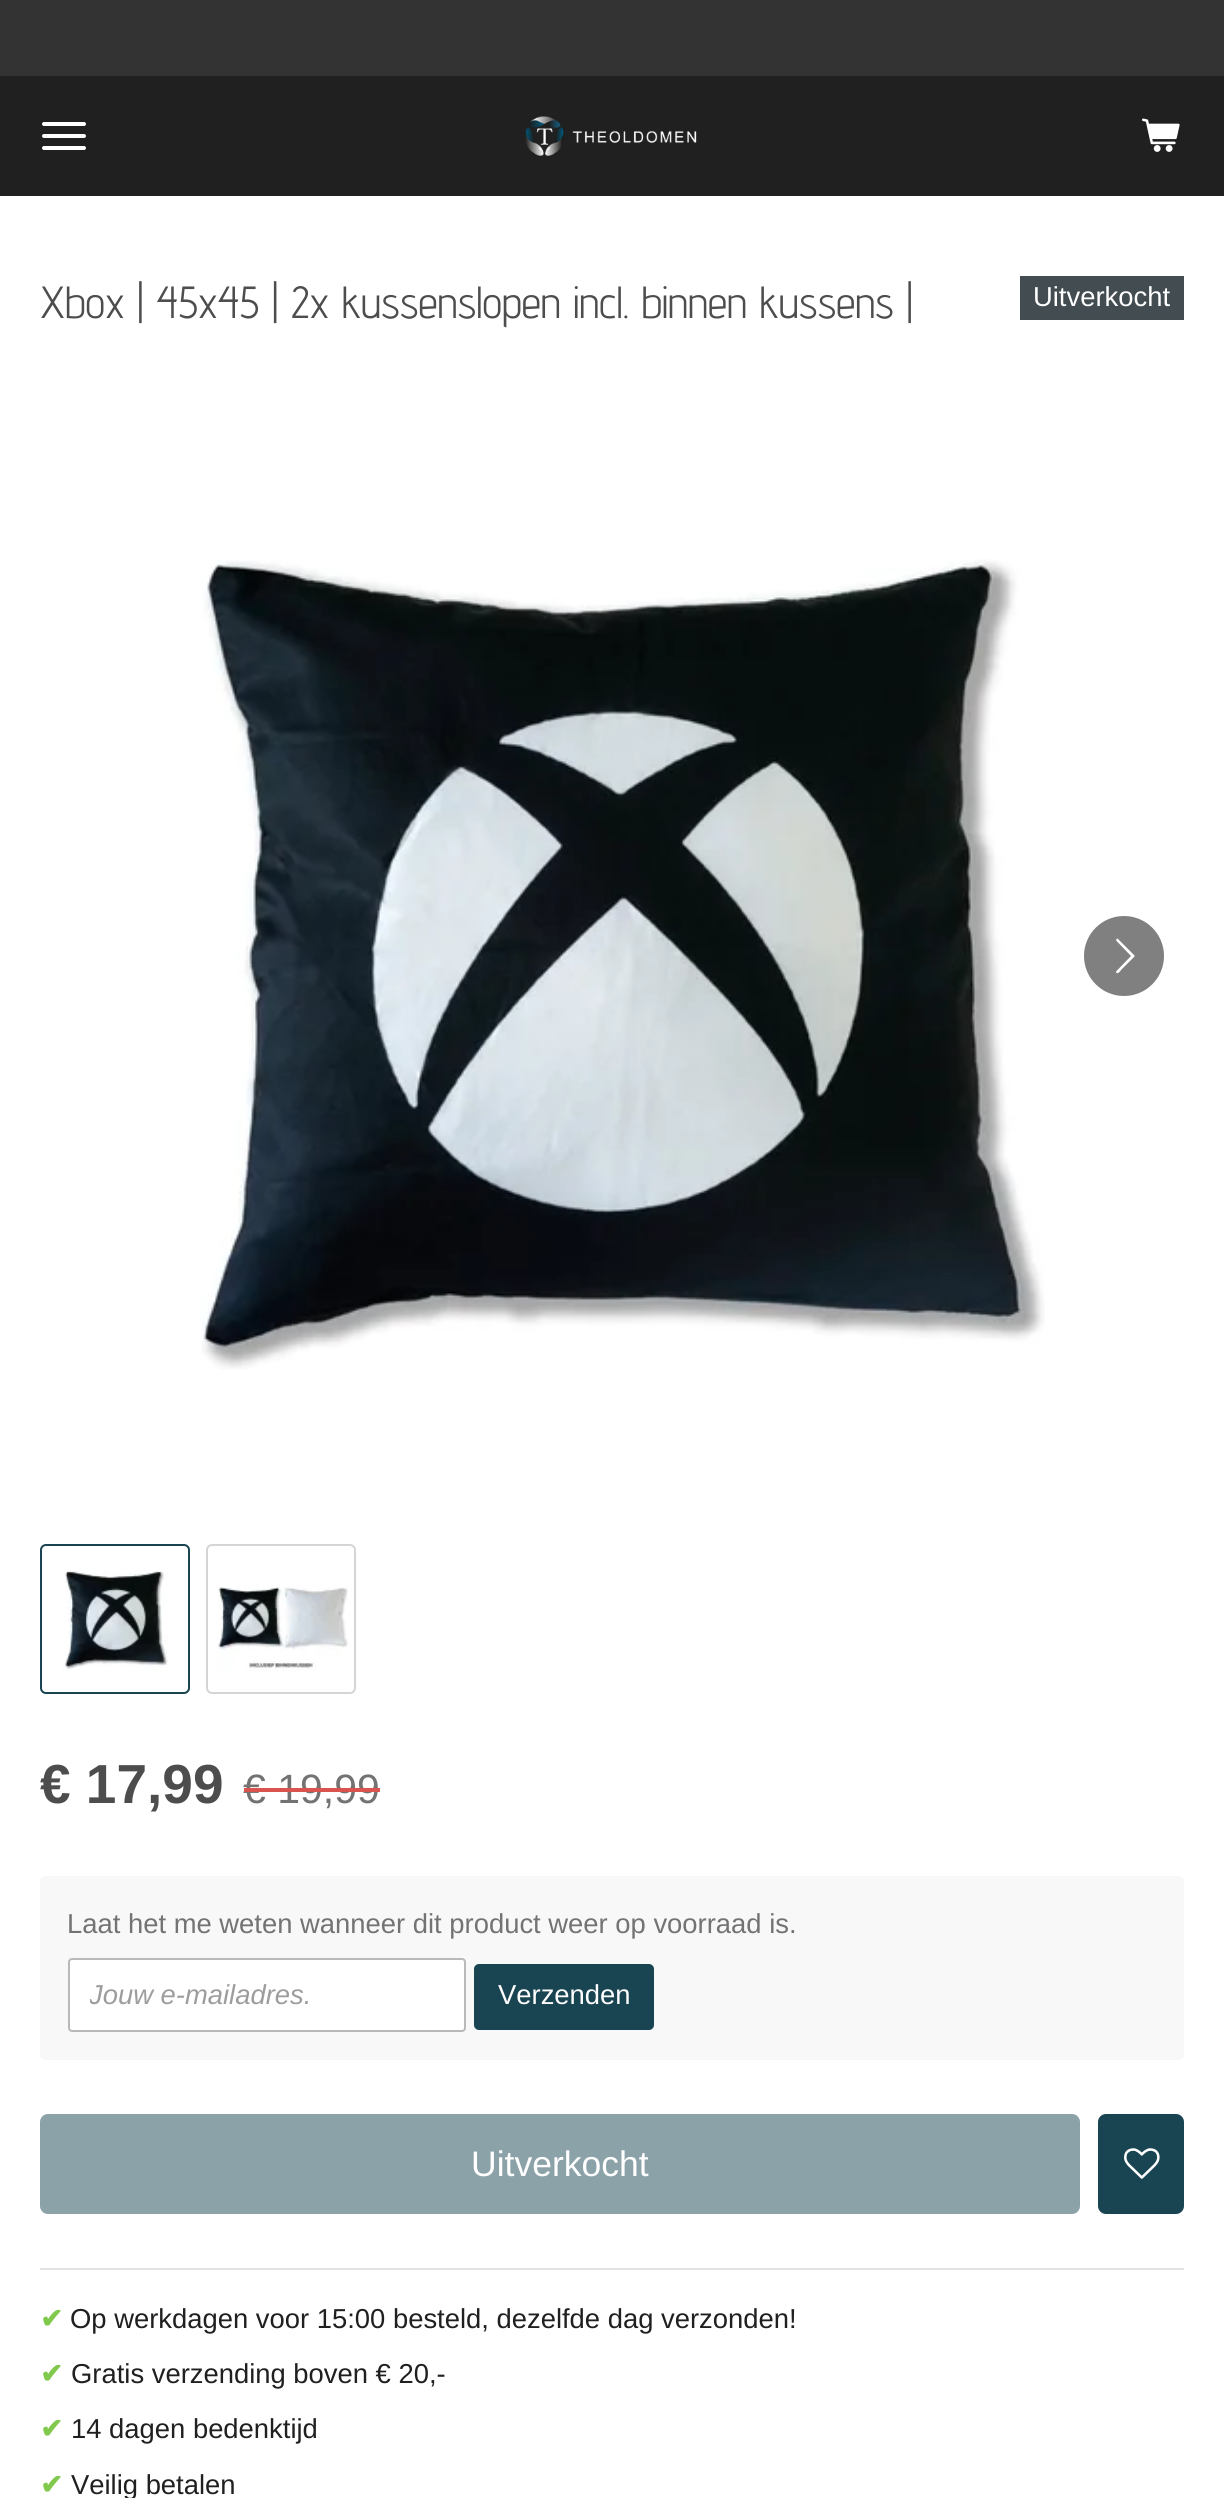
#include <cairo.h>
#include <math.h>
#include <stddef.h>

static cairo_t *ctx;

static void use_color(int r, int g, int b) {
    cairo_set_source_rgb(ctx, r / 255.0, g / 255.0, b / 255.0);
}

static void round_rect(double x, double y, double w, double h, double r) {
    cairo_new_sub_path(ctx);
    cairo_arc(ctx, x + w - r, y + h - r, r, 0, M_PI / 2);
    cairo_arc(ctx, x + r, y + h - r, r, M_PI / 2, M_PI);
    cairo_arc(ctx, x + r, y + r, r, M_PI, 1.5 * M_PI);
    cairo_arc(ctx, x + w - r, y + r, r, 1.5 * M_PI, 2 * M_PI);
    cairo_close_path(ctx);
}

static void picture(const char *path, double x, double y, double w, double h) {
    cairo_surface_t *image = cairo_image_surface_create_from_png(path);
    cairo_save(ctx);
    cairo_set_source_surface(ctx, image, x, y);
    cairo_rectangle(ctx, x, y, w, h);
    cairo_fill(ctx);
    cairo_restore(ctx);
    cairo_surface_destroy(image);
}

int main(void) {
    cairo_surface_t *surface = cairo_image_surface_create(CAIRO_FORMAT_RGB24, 1224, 2498);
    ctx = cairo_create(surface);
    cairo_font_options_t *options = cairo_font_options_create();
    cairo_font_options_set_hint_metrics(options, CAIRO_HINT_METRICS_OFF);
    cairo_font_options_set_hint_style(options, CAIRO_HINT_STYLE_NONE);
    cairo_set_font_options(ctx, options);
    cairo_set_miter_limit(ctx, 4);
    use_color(255, 255, 255);
    cairo_paint(ctx);
    use_color(51, 51, 51);
    cairo_rectangle(ctx, 0, 0, 1224, 76);
    cairo_fill(ctx);
    use_color(32, 32, 32);
    cairo_rectangle(ctx, 0, 76, 1224, 120);
    cairo_fill(ctx);
    use_color(255, 255, 255);
    round_rect(42, 134, 44, 4, 2);
    cairo_fill(ctx);
    round_rect(42, 122, 44, 4, 2);
    cairo_fill(ctx);
    round_rect(42, 146, 44, 4, 2);
    cairo_fill(ctx);
    picture("img1.png", 525, 116, 172, 40);
    picture("img2.png", 1142, 118, 38, 34);
    cairo_select_font_face(ctx, "Advent Pro", CAIRO_FONT_SLANT_NORMAL, CAIRO_FONT_WEIGHT_NORMAL);
    cairo_set_font_size(ctx, 45);
    use_color(77, 77, 77);
    cairo_move_to(ctx, 40, 318);
    cairo_show_text(ctx, "Xbox | 45x45 | 2x kussenslopen incl. binnen kussens |");
    use_color(66, 76, 81);
    cairo_rectangle(ctx, 1020, 276, 164, 44);
    cairo_fill(ctx);
    cairo_select_font_face(ctx, "Liberation Sans", CAIRO_FONT_SLANT_NORMAL, CAIRO_FONT_WEIGHT_NORMAL);
    cairo_set_font_size(ctx, 27.4);
    use_color(255, 255, 255);
    cairo_move_to(ctx, 1033, 306);
    cairo_show_text(ctx, "Uitverkocht");
    picture("img3.png", 201, 559, 844, 811);
    use_color(128, 128, 128);
    cairo_arc(ctx, 1124, 956, 40, 0, 2 * M_PI);
    cairo_fill(ctx);
    use_color(255, 255, 255);
    cairo_new_path(ctx);
    cairo_move_to(ctx, 1116.5, 971);
    cairo_line_to(ctx, 1131, 956);
    cairo_line_to(ctx, 1119, 943.5);
    cairo_curve_to(ctx, 1118.5, 943, 1114, 939.5, 1117.5, 938.5);
    cairo_line_to(ctx, 1118, 939);
    cairo_line_to(ctx, 1134.5, 955.5);
    cairo_line_to(ctx, 1134.5, 956.5);
    cairo_line_to(ctx, 1121, 970);
    cairo_curve_to(ctx, 1121, 970.5, 1117, 975.5, 1116, 972);
    cairo_close_path(ctx);
    cairo_fill(ctx);
    round_rect(41, 1545, 148, 148, 5);
    use_color(25, 68, 82);
    cairo_stroke(ctx);
    picture("img4.png", 63, 1570, 105, 101);
    round_rect(207, 1545, 148, 148, 5);
    use_color(213, 213, 213);
    cairo_stroke(ctx);
    picture("img5.png", 218, 1587, 131, 84);
    cairo_select_font_face(ctx, "Liberation Sans", CAIRO_FONT_SLANT_NORMAL, CAIRO_FONT_WEIGHT_BOLD);
    cairo_set_font_size(ctx, 55);
    use_color(77, 77, 77);
    cairo_move_to(ctx, 40, 1803);
    cairo_show_text(ctx, "€ 17,99");
    cairo_select_font_face(ctx, "Liberation Sans", CAIRO_FONT_SLANT_NORMAL, CAIRO_FONT_WEIGHT_NORMAL);
    cairo_set_font_size(ctx, 41);
    use_color(115, 115, 115);
    cairo_move_to(ctx, 243, 1803);
    cairo_show_text(ctx, "€ 19,99");
    use_color(217, 83, 79);
    cairo_rectangle(ctx, 244, 1788, 136, 4);
    cairo_fill(ctx);
    use_color(248, 248, 248);
    round_rect(40, 1876, 1144, 184, 5);
    cairo_fill(ctx);
    cairo_set_font_size(ctx, 27.4);
    use_color(115, 115, 115);
    cairo_move_to(ctx, 67, 1933);
    cairo_show_text(ctx, "Laat het me weten wanneer dit product weer op voorraad is.");
    use_color(255, 255, 255);
    round_rect(69, 1959, 396, 72, 3);
    cairo_fill_preserve(ctx);
    use_color(185, 185, 185);
    cairo_stroke(ctx);
    cairo_save(ctx);
    cairo_rectangle(ctx, 90, 1980, 354, 30);
    cairo_clip(ctx);
    cairo_select_font_face(ctx, "Liberation Sans", CAIRO_FONT_SLANT_ITALIC, CAIRO_FONT_WEIGHT_NORMAL);
    use_color(157, 157, 157);
    cairo_move_to(ctx, 89, 2004);
    cairo_show_text(ctx, "Jouw e-mailadres.");
    cairo_restore(ctx);
    use_color(25, 68, 82);
    round_rect(474, 1964, 180, 66, 5);
    cairo_fill(ctx);
    use_color(255, 255, 255);
    cairo_move_to(ctx, 498, 2004);
    cairo_show_text(ctx, "Verzenden");
    use_color(140, 162, 169);
    round_rect(40, 2114, 1040, 100, 8);
    cairo_fill(ctx);
    cairo_set_font_size(ctx, 35.5);
    use_color(255, 255, 255);
    cairo_move_to(ctx, 471, 2176);
    cairo_show_text(ctx, "Uitverkocht");
    use_color(25, 68, 82);
    round_rect(1098, 2114, 86, 100, 8);
    cairo_fill(ctx);
    picture("img6.png", 1124, 2148, 36, 31);
    use_color(227, 227, 227);
    cairo_rectangle(ctx, 40, 2268, 1144, 2);
    cairo_fill(ctx);
    cairo_select_font_face(ctx, "DejaVu Sans", CAIRO_FONT_SLANT_NORMAL, CAIRO_FONT_WEIGHT_BOLD);
    cairo_set_font_size(ctx, 27.4);
    use_color(129, 201, 76);
    cairo_move_to(ctx, 40, 2328);
    cairo_show_text(ctx, "✔");
    cairo_select_font_face(ctx, "Liberation Sans", CAIRO_FONT_SLANT_NORMAL, CAIRO_FONT_WEIGHT_NORMAL);
    use_color(32, 32, 32);
    cairo_move_to(ctx, 70, 2328);
    cairo_show_text(ctx, "Op werkdagen voor 15:00 besteld, dezelfde dag verzonden!");
    cairo_select_font_face(ctx, "DejaVu Sans", CAIRO_FONT_SLANT_NORMAL, CAIRO_FONT_WEIGHT_BOLD);
    use_color(129, 201, 76);
    cairo_move_to(ctx, 40, 2383);
    cairo_show_text(ctx, "✔");
    cairo_select_font_face(ctx, "Liberation Sans", CAIRO_FONT_SLANT_NORMAL, CAIRO_FONT_WEIGHT_NORMAL);
    use_color(32, 32, 32);
    cairo_move_to(ctx, 71, 2383);
    cairo_show_text(ctx, "Gratis verzending boven € 20,-");
    cairo_select_font_face(ctx, "DejaVu Sans", CAIRO_FONT_SLANT_NORMAL, CAIRO_FONT_WEIGHT_BOLD);
    use_color(129, 201, 76);
    cairo_move_to(ctx, 40, 2438);
    cairo_show_text(ctx, "✔");
    cairo_select_font_face(ctx, "Liberation Sans", CAIRO_FONT_SLANT_NORMAL, CAIRO_FONT_WEIGHT_NORMAL);
    use_color(32, 32, 32);
    cairo_move_to(ctx, 71, 2438);
    cairo_show_text(ctx, "14 dagen bedenktijd");
    cairo_select_font_face(ctx, "DejaVu Sans", CAIRO_FONT_SLANT_NORMAL, CAIRO_FONT_WEIGHT_BOLD);
    use_color(129, 201, 76);
    cairo_move_to(ctx, 40, 2494);
    cairo_show_text(ctx, "✔");
    cairo_select_font_face(ctx, "Liberation Sans", CAIRO_FONT_SLANT_NORMAL, CAIRO_FONT_WEIGHT_NORMAL);
    use_color(32, 32, 32);
    cairo_move_to(ctx, 71, 2494);
    cairo_show_text(ctx, "Veilig betalen");
    cairo_surface_write_to_png(surface, "result.png");
    cairo_font_options_destroy(options);
    cairo_destroy(ctx);
    cairo_surface_destroy(surface);
    return 0;
}
